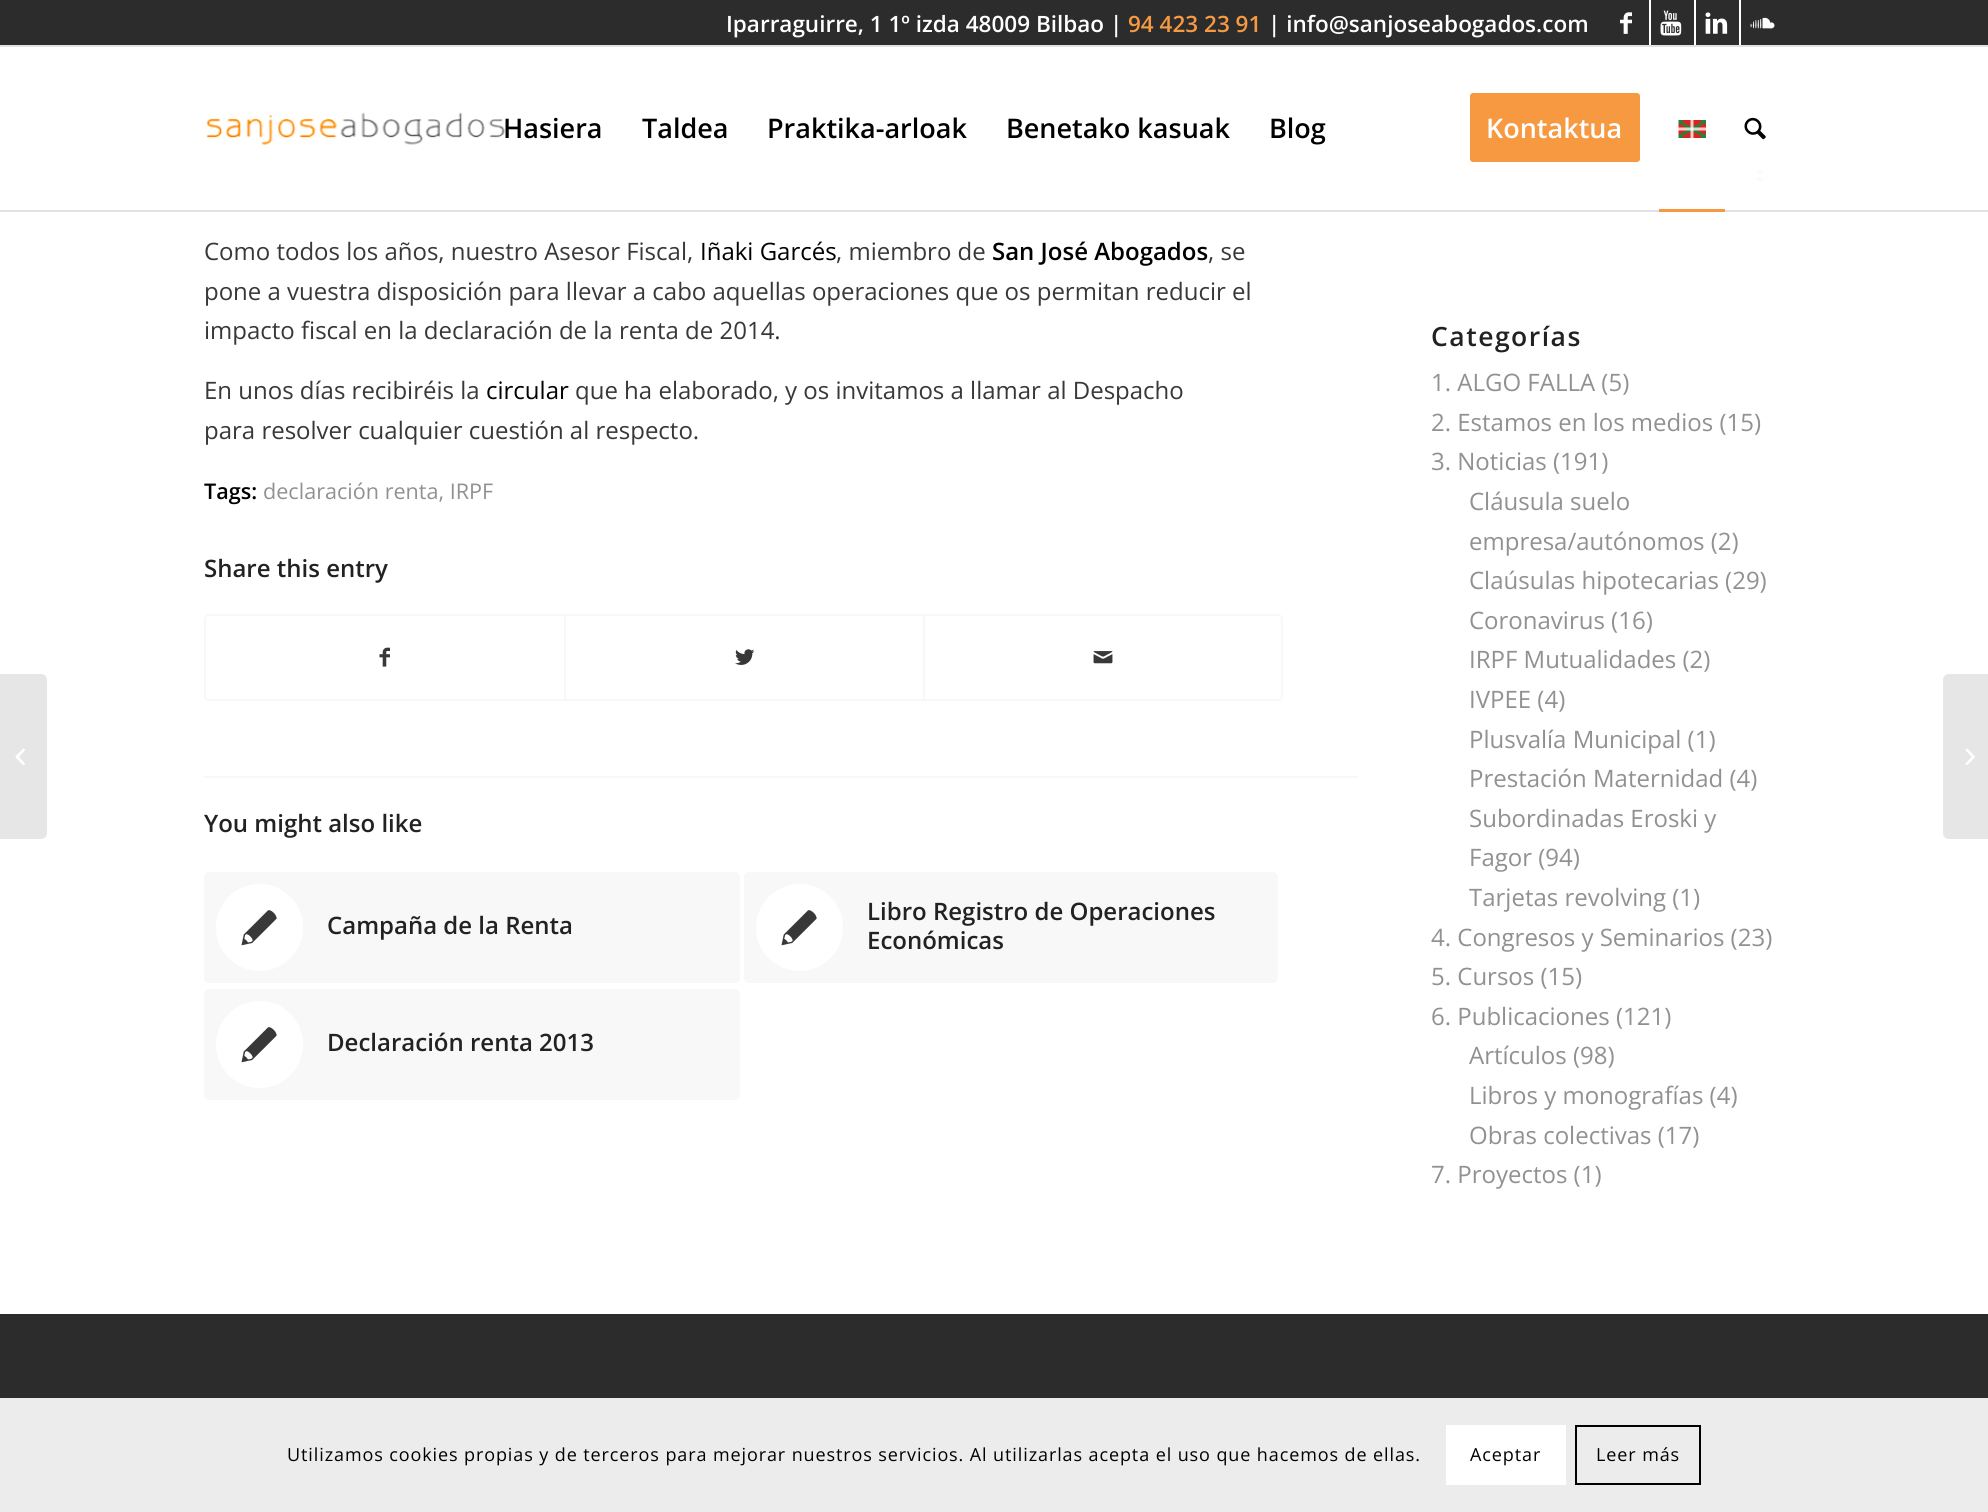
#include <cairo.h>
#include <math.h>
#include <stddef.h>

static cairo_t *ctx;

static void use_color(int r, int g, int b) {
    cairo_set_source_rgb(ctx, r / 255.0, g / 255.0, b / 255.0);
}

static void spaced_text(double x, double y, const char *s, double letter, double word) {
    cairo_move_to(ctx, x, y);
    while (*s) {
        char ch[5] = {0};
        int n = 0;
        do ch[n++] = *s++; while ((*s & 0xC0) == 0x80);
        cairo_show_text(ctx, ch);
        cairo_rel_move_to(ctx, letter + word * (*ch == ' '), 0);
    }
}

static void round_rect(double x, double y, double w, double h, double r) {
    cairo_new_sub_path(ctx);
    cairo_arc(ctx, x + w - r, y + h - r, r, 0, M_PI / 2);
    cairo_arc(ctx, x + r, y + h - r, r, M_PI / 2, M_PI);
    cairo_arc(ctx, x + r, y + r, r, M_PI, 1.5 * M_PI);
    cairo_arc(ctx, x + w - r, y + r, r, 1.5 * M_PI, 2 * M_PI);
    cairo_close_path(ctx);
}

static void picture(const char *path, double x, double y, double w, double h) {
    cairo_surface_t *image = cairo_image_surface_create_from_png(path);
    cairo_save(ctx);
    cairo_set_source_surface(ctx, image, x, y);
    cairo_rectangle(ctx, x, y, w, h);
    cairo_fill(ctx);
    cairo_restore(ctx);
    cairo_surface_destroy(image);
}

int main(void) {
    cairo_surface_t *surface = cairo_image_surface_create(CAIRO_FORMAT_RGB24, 1988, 1512);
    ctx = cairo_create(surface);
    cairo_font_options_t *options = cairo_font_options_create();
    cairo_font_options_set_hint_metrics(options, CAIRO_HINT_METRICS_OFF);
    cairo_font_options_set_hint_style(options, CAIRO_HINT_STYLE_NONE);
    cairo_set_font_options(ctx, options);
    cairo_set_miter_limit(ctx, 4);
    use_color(255, 255, 255);
    cairo_paint(ctx);
    use_color(44, 44, 44);
    cairo_rectangle(ctx, 0, 0, 1988, 45);
    cairo_fill(ctx);
    use_color(225, 225, 225);
    cairo_rectangle(ctx, 0, 45, 1988, 2);
    cairo_fill(ctx);
    cairo_select_font_face(ctx, "Open Sans SemiBold", CAIRO_FONT_SLANT_NORMAL, CAIRO_FONT_WEIGHT_NORMAL);
    cairo_set_font_size(ctx, 22.5);
    use_color(255, 255, 255);
    cairo_move_to(ctx, 726, 32);
    cairo_show_text(ctx, "Iparraguirre, 1 1º izda 48009 Bilbao |");
    use_color(247, 153, 65);
    cairo_move_to(ctx, 1128, 32);
    cairo_show_text(ctx, "94 423 23 91");
    use_color(255, 255, 255);
    cairo_move_to(ctx, 1268, 32);
    cairo_show_text(ctx, "| info@sanjoseabogados.com");
    cairo_rectangle(ctx, 1649, 0, 2, 45);
    cairo_fill(ctx);
    picture("img1.png", 1620, 12, 12, 22);
    cairo_rectangle(ctx, 1694, 0, 2, 45);
    cairo_fill(ctx);
    picture("img2.png", 1660, 10, 22, 26);
    cairo_rectangle(ctx, 1739, 0, 2, 45);
    cairo_fill(ctx);
    picture("img3.png", 1705, 12, 23, 22);
    picture("img4.png", 1750, 17, 25, 12);
    use_color(225, 225, 225);
    cairo_rectangle(ctx, 0, 210, 1988, 2);
    cairo_fill(ctx);
    picture("img5.png", 206, 112, 299, 33);
    cairo_set_font_size(ctx, 27);
    use_color(0, 0, 0);
    cairo_move_to(ctx, 503, 138);
    cairo_show_text(ctx, "Hasiera");
    cairo_move_to(ctx, 642, 138);
    cairo_show_text(ctx, "Taldea");
    cairo_move_to(ctx, 767, 138);
    cairo_show_text(ctx, "Praktika-arloak");
    cairo_move_to(ctx, 1006, 138);
    cairo_show_text(ctx, "Benetako kasuak");
    cairo_move_to(ctx, 1269, 138);
    cairo_show_text(ctx, "Blog");
    use_color(247, 153, 65);
    round_rect(1471.5, 94.5, 167, 66, 1.5);
    cairo_fill_preserve(ctx);
    cairo_set_line_width(ctx, 3);
    cairo_stroke(ctx);
    use_color(255, 255, 255);
    cairo_move_to(ctx, 1486, 138);
    cairo_show_text(ctx, "Kontaktua");
    picture("img6.png", 1678, 120, 28, 18);
    use_color(247, 153, 65);
    cairo_rectangle(ctx, 1659, 209, 66, 3);
    cairo_fill(ctx);
    picture("img7.png", 1744, 117, 22, 23);
    use_color(230, 230, 230);
    cairo_new_path(ctx);
    cairo_move_to(ctx, 0, 674);
    cairo_line_to(ctx, 41, 674);
    cairo_curve_to(ctx, 44.5, 674, 47, 676.5, 47, 680);
    cairo_line_to(ctx, 47, 833);
    cairo_curve_to(ctx, 47, 836.5, 44.5, 839, 41, 839);
    cairo_line_to(ctx, 0, 839);
    cairo_close_path(ctx);
    cairo_fill(ctx);
    picture("img8.png", 15, 748, 10, 17);
    cairo_select_font_face(ctx, "Open Sans", CAIRO_FONT_SLANT_NORMAL, CAIRO_FONT_WEIGHT_NORMAL);
    cairo_set_font_size(ctx, 24);
    use_color(56, 56, 56);
    cairo_move_to(ctx, 204, 260);
    cairo_show_text(ctx, "Como todos los años, nuestro Asesor Fiscal,");
    use_color(0, 0, 0);
    cairo_move_to(ctx, 700, 260);
    cairo_show_text(ctx, "Iñaki Garcés");
    use_color(56, 56, 56);
    cairo_move_to(ctx, 836, 260);
    cairo_show_text(ctx, ", miembro de");
    cairo_select_font_face(ctx, "Open Sans SemiBold", CAIRO_FONT_SLANT_NORMAL, CAIRO_FONT_WEIGHT_NORMAL);
    use_color(0, 0, 0);
    cairo_move_to(ctx, 992, 260);
    cairo_show_text(ctx, "San José Abogados");
    cairo_select_font_face(ctx, "Open Sans", CAIRO_FONT_SLANT_NORMAL, CAIRO_FONT_WEIGHT_NORMAL);
    use_color(56, 56, 56);
    cairo_move_to(ctx, 1208, 260);
    cairo_show_text(ctx, ", se");
    cairo_move_to(ctx, 204, 300);
    cairo_show_text(ctx, "pone a vuestra disposición para llevar a cabo aquellas operaciones que os permitan reducir el");
    cairo_move_to(ctx, 204, 339);
    cairo_show_text(ctx, "impacto fiscal en la declaración de la renta de 2014.");
    cairo_move_to(ctx, 204, 399);
    cairo_show_text(ctx, "En unos días recibiréis la");
    use_color(0, 0, 0);
    cairo_move_to(ctx, 486, 399);
    cairo_show_text(ctx, "circular");
    use_color(56, 56, 56);
    cairo_move_to(ctx, 575, 399);
    cairo_show_text(ctx, "que ha elaborado, y os invitamos a llamar al Despacho");
    cairo_move_to(ctx, 204, 439);
    cairo_show_text(ctx, "para resolver cualquier cuestión al respecto.");
    cairo_select_font_face(ctx, "Open Sans SemiBold", CAIRO_FONT_SLANT_NORMAL, CAIRO_FONT_WEIGHT_NORMAL);
    cairo_set_font_size(ctx, 21.6);
    use_color(0, 0, 0);
    cairo_move_to(ctx, 204, 499);
    cairo_show_text(ctx, "Tags:");
    cairo_select_font_face(ctx, "Open Sans", CAIRO_FONT_SLANT_NORMAL, CAIRO_FONT_WEIGHT_NORMAL);
    use_color(145, 145, 145);
    cairo_move_to(ctx, 263, 499);
    cairo_show_text(ctx, "declaración renta, IRPF");
    cairo_select_font_face(ctx, "Open Sans SemiBold", CAIRO_FONT_SLANT_NORMAL, CAIRO_FONT_WEIGHT_NORMAL);
    cairo_set_font_size(ctx, 24);
    use_color(34, 34, 34);
    cairo_move_to(ctx, 204, 577);
    cairo_show_text(ctx, "Share this entry");
    round_rect(205, 615, 1077, 85, 4);
    use_color(248, 248, 248);
    cairo_set_line_width(ctx, 2);
    cairo_stroke(ctx);
    picture("img9.png", 379, 647, 11, 20);
    cairo_rectangle(ctx, 564, 615, 2, 84);
    cairo_fill(ctx);
    picture("img10.png", 735, 649, 20, 16);
    cairo_rectangle(ctx, 923, 615, 2, 84);
    cairo_fill(ctx);
    picture("img11.png", 1093, 651, 20, 13);
    cairo_rectangle(ctx, 204, 776, 1154, 2);
    cairo_fill(ctx);
    use_color(34, 34, 34);
    cairo_move_to(ctx, 204, 832);
    cairo_show_text(ctx, "You might also like");
    use_color(248, 248, 248);
    round_rect(204, 872, 536, 111, 5);
    cairo_fill(ctx);
    use_color(255, 255, 255);
    cairo_arc(ctx, 259.5, 927.5, 43.5, 0, 2 * M_PI);
    cairo_fill(ctx);
    picture("img12.png", 241, 910, 36, 36);
    use_color(34, 34, 34);
    cairo_move_to(ctx, 327, 934);
    cairo_show_text(ctx, "Campaña de la Renta");
    use_color(248, 248, 248);
    round_rect(744, 872, 534, 111, 5);
    cairo_fill(ctx);
    use_color(255, 255, 255);
    cairo_arc(ctx, 799.5, 927.5, 43.5, 0, 2 * M_PI);
    cairo_fill(ctx);
    picture("img12.png", 781, 910, 36, 36);
    use_color(34, 34, 34);
    cairo_move_to(ctx, 867, 920);
    cairo_show_text(ctx, "Libro Registro de Operaciones");
    cairo_move_to(ctx, 867, 949);
    cairo_show_text(ctx, "Económicas");
    use_color(248, 248, 248);
    round_rect(204, 989, 536, 111, 5);
    cairo_fill(ctx);
    use_color(255, 255, 255);
    cairo_arc(ctx, 259.5, 1044.5, 43.5, 0, 2 * M_PI);
    cairo_fill(ctx);
    picture("img12.png", 241, 1027, 36, 36);
    use_color(34, 34, 34);
    cairo_move_to(ctx, 327, 1051);
    cairo_show_text(ctx, "Declaración renta 2013");
    picture("img13.png", 1738, 165, 27, 20);
    cairo_set_font_size(ctx, 26.5);
    spaced_text(1431, 346, "Categorías", 1.5, 0);
    cairo_select_font_face(ctx, "Open Sans", CAIRO_FONT_SLANT_NORMAL, CAIRO_FONT_WEIGHT_NORMAL);
    cairo_set_font_size(ctx, 24);
    use_color(145, 145, 145);
    cairo_move_to(ctx, 1431, 391);
    cairo_show_text(ctx, "1. ALGO FALLA (5)");
    cairo_move_to(ctx, 1431, 431);
    cairo_show_text(ctx, "2. Estamos en los medios (15)");
    cairo_move_to(ctx, 1431, 470);
    cairo_show_text(ctx, "3. Noticias (191)");
    cairo_move_to(ctx, 1469, 510);
    cairo_show_text(ctx, "Cláusula suelo");
    cairo_move_to(ctx, 1469, 550);
    cairo_show_text(ctx, "empresa/autónomos (2)");
    cairo_move_to(ctx, 1469, 589);
    cairo_show_text(ctx, "Claúsulas hipotecarias (29)");
    cairo_move_to(ctx, 1469, 629);
    cairo_show_text(ctx, "Coronavirus (16)");
    cairo_move_to(ctx, 1469, 668);
    cairo_show_text(ctx, "IRPF Mutualidades (2)");
    cairo_move_to(ctx, 1469, 708);
    cairo_show_text(ctx, "IVPEE (4)");
    cairo_move_to(ctx, 1469, 748);
    cairo_show_text(ctx, "Plusvalía Municipal (1)");
    cairo_move_to(ctx, 1469, 787);
    cairo_show_text(ctx, "Prestación Maternidad (4)");
    cairo_move_to(ctx, 1469, 827);
    cairo_show_text(ctx, "Subordinadas Eroski y");
    cairo_move_to(ctx, 1469, 866);
    cairo_show_text(ctx, "Fagor (94)");
    cairo_move_to(ctx, 1469, 906);
    cairo_show_text(ctx, "Tarjetas revolving (1)");
    cairo_move_to(ctx, 1431, 946);
    cairo_show_text(ctx, "4. Congresos y Seminarios (23)");
    cairo_move_to(ctx, 1431, 985);
    cairo_show_text(ctx, "5. Cursos (15)");
    cairo_move_to(ctx, 1431, 1025);
    cairo_show_text(ctx, "6. Publicaciones (121)");
    cairo_move_to(ctx, 1469, 1064);
    cairo_show_text(ctx, "Artículos (98)");
    cairo_move_to(ctx, 1469, 1104);
    cairo_show_text(ctx, "Libros y monografías (4)");
    cairo_move_to(ctx, 1469, 1144);
    cairo_show_text(ctx, "Obras colectivas (17)");
    cairo_move_to(ctx, 1431, 1183);
    cairo_show_text(ctx, "7. Proyectos (1)");
    use_color(44, 44, 44);
    cairo_rectangle(ctx, 0, 1314, 1988, 84);
    cairo_fill(ctx);
    use_color(230, 230, 230);
    cairo_new_path(ctx);
    cairo_move_to(ctx, 1949, 674);
    cairo_line_to(ctx, 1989, 674);
    cairo_line_to(ctx, 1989, 839);
    cairo_line_to(ctx, 1949, 839);
    cairo_curve_to(ctx, 1945.5, 839, 1943, 836.5, 1943, 833);
    cairo_line_to(ctx, 1943, 680);
    cairo_curve_to(ctx, 1943, 676.5, 1945.5, 674, 1949, 674);
    cairo_close_path(ctx);
    cairo_fill(ctx);
    picture("img14.png", 1965, 748, 10, 17);
    use_color(236, 236, 236);
    cairo_rectangle(ctx, 0, 1398, 1988, 114);
    cairo_fill(ctx);
    cairo_set_font_size(ctx, 18);
    use_color(0, 0, 0);
    spaced_text(287, 1461, "Utilizamos cookies propias y de terceros para mejorar nuestros servicios. Al utilizarlas acepta el uso que hacemos de ellas.", 0.9, 0);
    use_color(255, 255, 255);
    cairo_rectangle(ctx, 1446, 1425, 120, 60);
    cairo_fill(ctx);
    use_color(0, 0, 0);
    spaced_text(1470, 1461, "Aceptar", 0.9, 0);
    cairo_rectangle(ctx, 1576, 1426, 124, 58);
    cairo_stroke(ctx);
    spaced_text(1596, 1461, "Leer más", 0.9, 0);
    cairo_surface_write_to_png(surface, "result.png");
    cairo_font_options_destroy(options);
    cairo_destroy(ctx);
    cairo_surface_destroy(surface);
    return 0;
}
